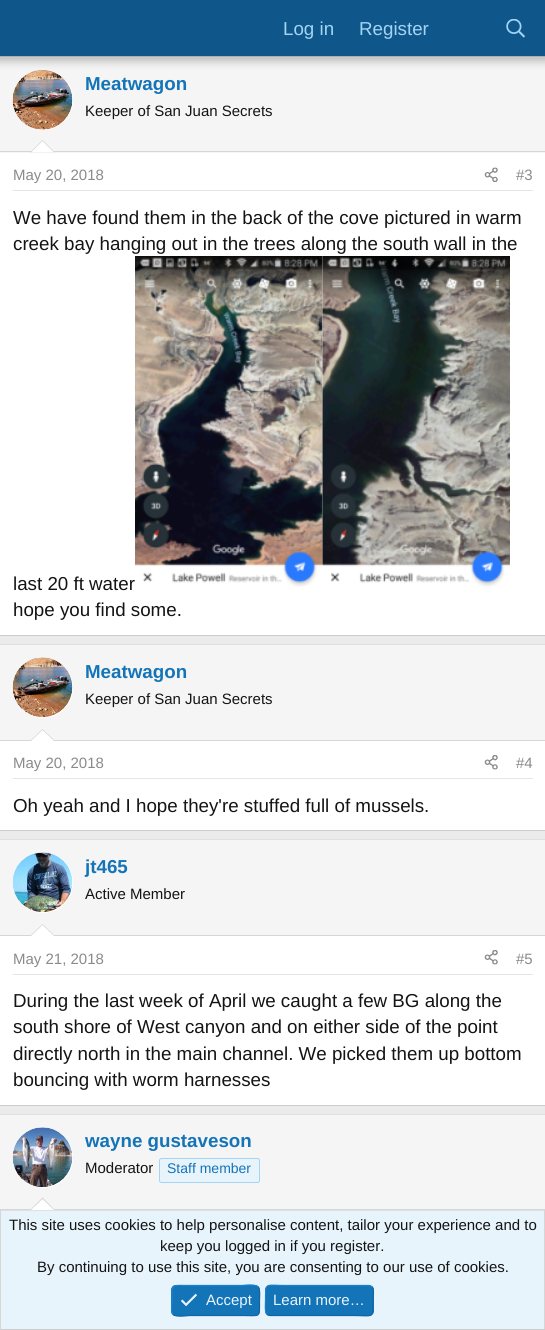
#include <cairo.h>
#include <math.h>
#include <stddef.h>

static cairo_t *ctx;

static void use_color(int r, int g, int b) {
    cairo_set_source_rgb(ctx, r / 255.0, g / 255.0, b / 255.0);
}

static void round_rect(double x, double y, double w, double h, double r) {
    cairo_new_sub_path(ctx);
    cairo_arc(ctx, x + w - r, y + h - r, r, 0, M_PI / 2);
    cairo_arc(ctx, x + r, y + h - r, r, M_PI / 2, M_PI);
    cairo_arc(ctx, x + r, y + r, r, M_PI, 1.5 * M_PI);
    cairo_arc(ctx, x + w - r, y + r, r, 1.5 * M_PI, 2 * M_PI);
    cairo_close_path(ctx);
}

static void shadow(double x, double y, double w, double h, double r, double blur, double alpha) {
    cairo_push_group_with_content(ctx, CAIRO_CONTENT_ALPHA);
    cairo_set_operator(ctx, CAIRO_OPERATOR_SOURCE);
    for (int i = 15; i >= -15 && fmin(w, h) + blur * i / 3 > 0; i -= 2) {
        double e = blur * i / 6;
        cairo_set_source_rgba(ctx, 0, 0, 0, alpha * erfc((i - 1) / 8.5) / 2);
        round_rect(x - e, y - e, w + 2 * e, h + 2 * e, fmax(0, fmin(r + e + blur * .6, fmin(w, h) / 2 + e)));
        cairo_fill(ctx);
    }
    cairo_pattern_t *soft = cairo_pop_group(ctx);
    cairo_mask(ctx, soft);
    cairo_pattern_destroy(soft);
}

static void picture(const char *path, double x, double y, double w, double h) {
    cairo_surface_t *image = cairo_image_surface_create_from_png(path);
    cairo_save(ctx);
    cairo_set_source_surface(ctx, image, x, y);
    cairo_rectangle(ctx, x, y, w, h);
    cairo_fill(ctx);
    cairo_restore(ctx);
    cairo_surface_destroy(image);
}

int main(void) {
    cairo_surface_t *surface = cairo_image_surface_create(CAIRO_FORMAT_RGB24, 545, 1330);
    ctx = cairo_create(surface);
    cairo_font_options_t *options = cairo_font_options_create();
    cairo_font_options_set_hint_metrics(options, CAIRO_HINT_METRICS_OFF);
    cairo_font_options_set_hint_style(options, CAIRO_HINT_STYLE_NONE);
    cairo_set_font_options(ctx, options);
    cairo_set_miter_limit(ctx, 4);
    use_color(235, 235, 235);
    cairo_paint(ctx);
    use_color(255, 255, 255);
    cairo_rectangle(ctx, 0, 57, 545, 578);
    cairo_fill(ctx);
    use_color(224, 224, 224);
    cairo_rectangle(ctx, 0, 56, 545, 1);
    cairo_fill(ctx);
    use_color(245, 245, 245);
    cairo_rectangle(ctx, 0, 58, 545, 95);
    cairo_fill(ctx);
    use_color(255, 255, 255);
    cairo_arc(ctx, 43, 100, 30, 0, 2 * M_PI);
    cairo_fill(ctx);
    picture("img2.png", 12, 70, 61, 60);
    use_color(0, 0, 0);
    shadow(-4, -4, 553, 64, 0, 5, 0.3);
    use_color(15, 87, 138);
    cairo_rectangle(ctx, 0, 0, 545, 56);
    cairo_fill(ctx);
    cairo_select_font_face(ctx, "Liberation Sans", CAIRO_FONT_SLANT_NORMAL, CAIRO_FONT_WEIGHT_NORMAL);
    cairo_set_font_size(ctx, 18.75);
    use_color(163, 212, 245);
    cairo_move_to(ctx, 283, 35);
    cairo_show_text(ctx, "Log in");
    cairo_move_to(ctx, 359, 35);
    cairo_show_text(ctx, "Register");
    picture("img1.png", 506, 19, 19, 19);
    use_color(204, 204, 204);
    cairo_rectangle(ctx, 0, 635, 545, 1);
    cairo_fill(ctx);
    use_color(214, 214, 214);
    cairo_rectangle(ctx, 0, 151, 545, 1);
    cairo_fill(ctx);
    cairo_select_font_face(ctx, "Liberation Sans", CAIRO_FONT_SLANT_NORMAL, CAIRO_FONT_WEIGHT_BOLD);
    use_color(20, 116, 184);
    cairo_move_to(ctx, 85, 90);
    cairo_show_text(ctx, "Meatwagon");
    cairo_select_font_face(ctx, "Liberation Sans", CAIRO_FONT_SLANT_NORMAL, CAIRO_FONT_WEIGHT_NORMAL);
    cairo_set_font_size(ctx, 15);
    use_color(20, 20, 20);
    cairo_move_to(ctx, 85, 116);
    cairo_show_text(ctx, "Keeper of San Juan Secrets");
    use_color(214, 214, 214);
    cairo_new_path(ctx);
    cairo_move_to(ctx, 55, 152.5);
    cairo_line_to(ctx, 30, 152.5);
    cairo_line_to(ctx, 42.5, 140);
    cairo_close_path(ctx);
    cairo_fill(ctx);
    use_color(255, 255, 255);
    cairo_new_path(ctx);
    cairo_move_to(ctx, 54, 152.5);
    cairo_line_to(ctx, 31, 152.5);
    cairo_line_to(ctx, 42.5, 141);
    cairo_close_path(ctx);
    cairo_fill(ctx);
    use_color(229, 229, 229);
    cairo_rectangle(ctx, 13, 190, 520, 1);
    cairo_fill(ctx);
    use_color(138, 138, 138);
    cairo_move_to(ctx, 13, 180);
    cairo_show_text(ctx, "May 20, 2018");
    picture("img3.png", 484, 167, 14, 15);
    cairo_move_to(ctx, 516, 180);
    cairo_show_text(ctx, "#3");
    cairo_set_font_size(ctx, 18.75);
    use_color(20, 20, 20);
    cairo_move_to(ctx, 13, 224);
    cairo_show_text(ctx, "We have found them in the back of the cove pictured in warm");
    cairo_move_to(ctx, 13, 250);
    cairo_show_text(ctx, "creek bay hanging out in the trees along the south wall in the");
    cairo_move_to(ctx, 13, 590);
    cairo_show_text(ctx, "last 20 ft water");
    picture("img4.png", 135, 256, 188, 331);
    picture("img5.png", 322, 256, 188, 331);
    cairo_move_to(ctx, 13, 616);
    cairo_show_text(ctx, "hope you find some.");
    use_color(255, 255, 255);
    cairo_rectangle(ctx, 0, 741, 545, 89);
    cairo_fill(ctx);
    use_color(224, 224, 224);
    cairo_rectangle(ctx, 0, 644, 545, 1);
    cairo_fill(ctx);
    use_color(204, 204, 204);
    cairo_rectangle(ctx, 0, 830, 545, 1);
    cairo_fill(ctx);
    use_color(245, 245, 245);
    cairo_rectangle(ctx, 0, 645, 545, 95);
    cairo_fill(ctx);
    use_color(214, 214, 214);
    cairo_rectangle(ctx, 0, 740, 545, 1);
    cairo_fill(ctx);
    use_color(255, 255, 255);
    cairo_arc(ctx, 43, 688, 30, 0, 2 * M_PI);
    cairo_fill(ctx);
    picture("img6.png", 12, 657, 61, 60);
    cairo_select_font_face(ctx, "Liberation Sans", CAIRO_FONT_SLANT_NORMAL, CAIRO_FONT_WEIGHT_BOLD);
    use_color(20, 116, 184);
    cairo_move_to(ctx, 85, 678);
    cairo_show_text(ctx, "Meatwagon");
    cairo_select_font_face(ctx, "Liberation Sans", CAIRO_FONT_SLANT_NORMAL, CAIRO_FONT_WEIGHT_NORMAL);
    cairo_set_font_size(ctx, 15);
    use_color(20, 20, 20);
    cairo_move_to(ctx, 85, 704);
    cairo_show_text(ctx, "Keeper of San Juan Secrets");
    use_color(214, 214, 214);
    cairo_new_path(ctx);
    cairo_move_to(ctx, 55, 741);
    cairo_line_to(ctx, 30, 741);
    cairo_line_to(ctx, 42.5, 729);
    cairo_close_path(ctx);
    cairo_fill(ctx);
    use_color(255, 255, 255);
    cairo_new_path(ctx);
    cairo_move_to(ctx, 54, 741);
    cairo_line_to(ctx, 31, 741);
    cairo_line_to(ctx, 42.5, 730);
    cairo_close_path(ctx);
    cairo_fill(ctx);
    use_color(229, 229, 229);
    cairo_rectangle(ctx, 13, 778, 520, 1);
    cairo_fill(ctx);
    use_color(138, 138, 138);
    cairo_move_to(ctx, 13, 768);
    cairo_show_text(ctx, "May 20, 2018");
    picture("img7.png", 484, 755, 14, 15);
    cairo_move_to(ctx, 516, 768);
    cairo_show_text(ctx, "#4");
    cairo_set_font_size(ctx, 18.75);
    use_color(20, 20, 20);
    cairo_move_to(ctx, 13, 812);
    cairo_show_text(ctx, "Oh yeah and I hope they're stuffed full of mussels.");
    use_color(255, 255, 255);
    cairo_rectangle(ctx, 0, 936, 545, 169);
    cairo_fill(ctx);
    use_color(224, 224, 224);
    cairo_rectangle(ctx, 0, 839, 545, 1);
    cairo_fill(ctx);
    use_color(204, 204, 204);
    cairo_rectangle(ctx, 0, 1105, 545, 1);
    cairo_fill(ctx);
    use_color(245, 245, 245);
    cairo_rectangle(ctx, 0, 840, 545, 95);
    cairo_fill(ctx);
    use_color(214, 214, 214);
    cairo_rectangle(ctx, 0, 935, 545, 1);
    cairo_fill(ctx);
    use_color(255, 255, 255);
    cairo_arc(ctx, 43, 883, 30, 0, 2 * M_PI);
    cairo_fill(ctx);
    picture("img8.png", 12, 852, 61, 60);
    cairo_select_font_face(ctx, "Liberation Sans", CAIRO_FONT_SLANT_NORMAL, CAIRO_FONT_WEIGHT_BOLD);
    use_color(20, 116, 184);
    cairo_move_to(ctx, 85, 873);
    cairo_show_text(ctx, "jt465");
    cairo_select_font_face(ctx, "Liberation Sans", CAIRO_FONT_SLANT_NORMAL, CAIRO_FONT_WEIGHT_NORMAL);
    cairo_set_font_size(ctx, 15);
    use_color(20, 20, 20);
    cairo_move_to(ctx, 85, 899);
    cairo_show_text(ctx, "Active Member");
    use_color(214, 214, 214);
    cairo_new_path(ctx);
    cairo_move_to(ctx, 55, 936);
    cairo_line_to(ctx, 30, 936);
    cairo_line_to(ctx, 42.5, 924);
    cairo_close_path(ctx);
    cairo_fill(ctx);
    use_color(255, 255, 255);
    cairo_new_path(ctx);
    cairo_move_to(ctx, 54, 936);
    cairo_line_to(ctx, 31, 936);
    cairo_line_to(ctx, 42.5, 925);
    cairo_close_path(ctx);
    cairo_fill(ctx);
    use_color(229, 229, 229);
    cairo_rectangle(ctx, 13, 974, 520, 1);
    cairo_fill(ctx);
    use_color(138, 138, 138);
    cairo_move_to(ctx, 13, 964);
    cairo_show_text(ctx, "May 21, 2018");
    picture("img7.png", 484, 950, 14, 15);
    cairo_move_to(ctx, 516, 964);
    cairo_show_text(ctx, "#5");
    cairo_set_font_size(ctx, 18.75);
    use_color(20, 20, 20);
    cairo_move_to(ctx, 13, 1007);
    cairo_show_text(ctx, "During the last week of April we caught a few BG along the");
    cairo_move_to(ctx, 13, 1033);
    cairo_show_text(ctx, "south shore of West canyon and on either side of the point");
    cairo_move_to(ctx, 13, 1060);
    cairo_show_text(ctx, "directly north in the main channel. We picked them up bottom");
    cairo_move_to(ctx, 13, 1086);
    cairo_show_text(ctx, "bouncing with worm harnesses");
    use_color(224, 224, 224);
    cairo_rectangle(ctx, 0, 1114, 545, 1);
    cairo_fill(ctx);
    use_color(245, 245, 245);
    cairo_rectangle(ctx, 0, 1115, 545, 94);
    cairo_fill(ctx);
    use_color(214, 214, 214);
    cairo_rectangle(ctx, 0, 1209, 545, 1);
    cairo_fill(ctx);
    use_color(255, 255, 255);
    cairo_arc(ctx, 43, 1158, 30, 0, 2 * M_PI);
    cairo_fill(ctx);
    picture("img9.png", 12, 1127, 61, 60);
    cairo_select_font_face(ctx, "Liberation Sans", CAIRO_FONT_SLANT_NORMAL, CAIRO_FONT_WEIGHT_BOLD);
    use_color(20, 116, 184);
    cairo_move_to(ctx, 85, 1147);
    cairo_show_text(ctx, "wayne gustaveson");
    cairo_select_font_face(ctx, "Liberation Sans", CAIRO_FONT_SLANT_NORMAL, CAIRO_FONT_WEIGHT_NORMAL);
    cairo_set_font_size(ctx, 15);
    use_color(20, 20, 20);
    cairo_move_to(ctx, 85, 1173);
    cairo_show_text(ctx, "Moderator");
    use_color(232, 244, 252);
    round_rect(159.5, 1158.5, 100, 24, 2);
    cairo_fill_preserve(ctx);
    use_color(163, 212, 245);
    cairo_set_line_width(ctx, 1);
    cairo_stroke(ctx);
    cairo_set_font_size(ctx, 14);
    use_color(20, 116, 184);
    cairo_move_to(ctx, 167, 1173);
    cairo_show_text(ctx, "Staff member");
    use_color(214, 214, 214);
    cairo_new_path(ctx);
    cairo_move_to(ctx, 55, 1210);
    cairo_line_to(ctx, 30, 1210);
    cairo_line_to(ctx, 42.5, 1197.5);
    cairo_close_path(ctx);
    cairo_fill(ctx);
    use_color(255, 255, 255);
    cairo_new_path(ctx);
    cairo_move_to(ctx, 54, 1210);
    cairo_line_to(ctx, 31, 1210);
    cairo_line_to(ctx, 42.5, 1199);
    cairo_close_path(ctx);
    cairo_fill(ctx);
    use_color(232, 244, 252);
    cairo_rectangle(ctx, 1, 1211, 543, 118);
    cairo_fill(ctx);
    use_color(224, 224, 224);
    cairo_rectangle(ctx, 0, 1210, 545, 1);
    cairo_fill(ctx);
    use_color(214, 214, 214);
    cairo_rectangle(ctx, 544, 1210, 1, 120);
    cairo_fill(ctx);
    use_color(204, 204, 204);
    cairo_rectangle(ctx, 0, 1329, 545, 1);
    cairo_fill(ctx);
    use_color(214, 214, 214);
    cairo_rectangle(ctx, 0, 1210, 1, 120);
    cairo_fill(ctx);
    cairo_set_font_size(ctx, 15);
    use_color(20, 20, 20);
    cairo_move_to(ctx, 9, 1230);
    cairo_show_text(ctx, "This site uses cookies to help personalise content, tailor your experience and to");
    cairo_move_to(ctx, 160, 1251);
    cairo_show_text(ctx, "keep you logged in if you register.");
    cairo_move_to(ctx, 37, 1272);
    cairo_show_text(ctx, "By continuing to use this site, you are consenting to our use of cookies.");
    use_color(20, 116, 184);
    round_rect(171, 1285, 89, 31, 5);
    cairo_fill(ctx);
    cairo_new_path(ctx);
    cairo_move_to(ctx, 258, 1287);
    cairo_curve_to(ctx, 260.5, 1289.5, 259.5, 1297.5, 259.5, 1300.5);
    cairo_curve_to(ctx, 259.5, 1318.5, 261, 1315.5, 242, 1315.5);
    cairo_line_to(ctx, 189.5, 1315.5);
    cairo_curve_to(ctx, 188, 1315.5, 176.5, 1317.5, 173, 1314.5);
    use_color(18, 101, 161);
    cairo_set_line_width(ctx, 1.2);
    cairo_stroke(ctx);
    cairo_new_path(ctx);
    cairo_move_to(ctx, 173, 1314.5);
    cairo_curve_to(ctx, 170.5, 1311.5, 172, 1304, 172, 1300.5);
    cairo_curve_to(ctx, 172, 1283, 170.5, 1285.5, 189.5, 1285.5);
    cairo_line_to(ctx, 242, 1285.5);
    cairo_curve_to(ctx, 243, 1285.5, 255, 1283.5, 258, 1287);
    use_color(23, 130, 207);
    cairo_stroke(ctx);
    picture("img10.png", 181, 1293, 16, 14);
    use_color(232, 244, 252);
    cairo_move_to(ctx, 206, 1305);
    cairo_show_text(ctx, "Accept");
    use_color(20, 116, 184);
    round_rect(265, 1285, 109, 31, 5);
    cairo_fill(ctx);
    cairo_new_path(ctx);
    cairo_move_to(ctx, 372, 1287);
    cairo_curve_to(ctx, 374.5, 1289.5, 373, 1297.5, 373, 1300.5);
    cairo_curve_to(ctx, 373, 1319.5, 374, 1315.5, 352.5, 1315.5);
    cairo_line_to(ctx, 270, 1315.5);
    cairo_line_to(ctx, 267, 1314.5);
    use_color(18, 101, 161);
    cairo_stroke(ctx);
    cairo_new_path(ctx);
    cairo_move_to(ctx, 267, 1314.5);
    cairo_curve_to(ctx, 264.5, 1311.5, 265.5, 1304, 265.5, 1300.5);
    cairo_curve_to(ctx, 265.5, 1281.5, 265, 1285.5, 286.5, 1285.5);
    cairo_line_to(ctx, 369, 1285.5);
    cairo_line_to(ctx, 372, 1287);
    use_color(23, 130, 207);
    cairo_stroke(ctx);
    use_color(232, 244, 252);
    cairo_move_to(ctx, 273, 1305);
    cairo_show_text(ctx, "Learn more…");
    cairo_surface_write_to_png(surface, "result.png");
    cairo_font_options_destroy(options);
    cairo_destroy(ctx);
    cairo_surface_destroy(surface);
    return 0;
}
